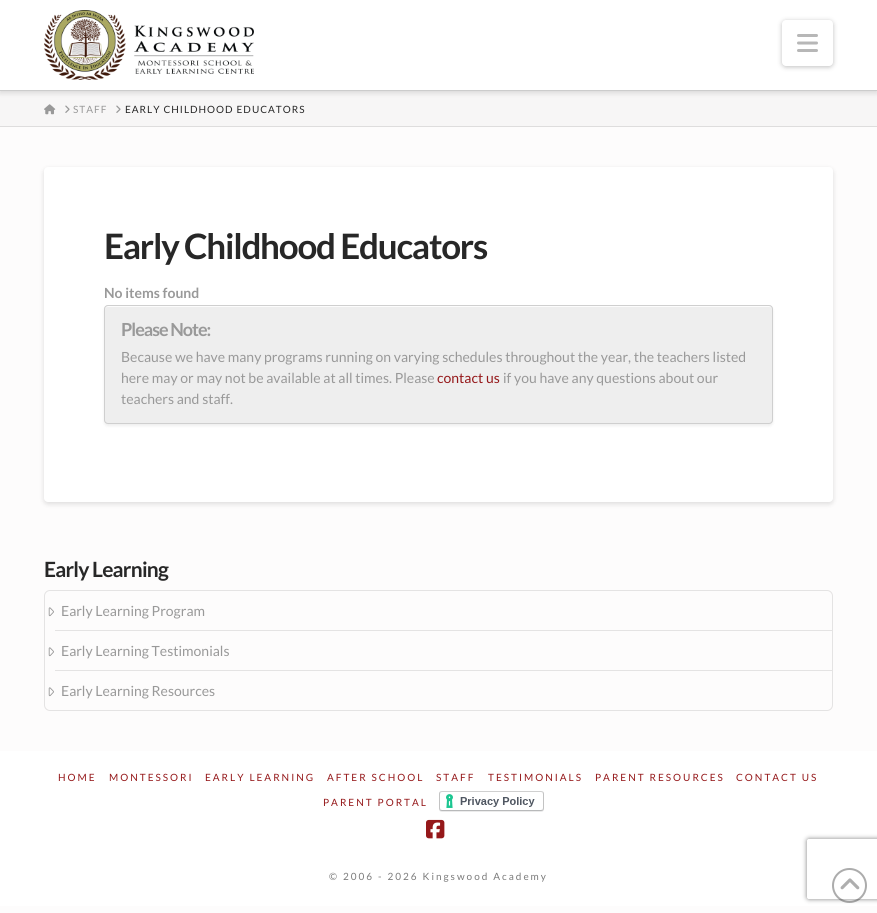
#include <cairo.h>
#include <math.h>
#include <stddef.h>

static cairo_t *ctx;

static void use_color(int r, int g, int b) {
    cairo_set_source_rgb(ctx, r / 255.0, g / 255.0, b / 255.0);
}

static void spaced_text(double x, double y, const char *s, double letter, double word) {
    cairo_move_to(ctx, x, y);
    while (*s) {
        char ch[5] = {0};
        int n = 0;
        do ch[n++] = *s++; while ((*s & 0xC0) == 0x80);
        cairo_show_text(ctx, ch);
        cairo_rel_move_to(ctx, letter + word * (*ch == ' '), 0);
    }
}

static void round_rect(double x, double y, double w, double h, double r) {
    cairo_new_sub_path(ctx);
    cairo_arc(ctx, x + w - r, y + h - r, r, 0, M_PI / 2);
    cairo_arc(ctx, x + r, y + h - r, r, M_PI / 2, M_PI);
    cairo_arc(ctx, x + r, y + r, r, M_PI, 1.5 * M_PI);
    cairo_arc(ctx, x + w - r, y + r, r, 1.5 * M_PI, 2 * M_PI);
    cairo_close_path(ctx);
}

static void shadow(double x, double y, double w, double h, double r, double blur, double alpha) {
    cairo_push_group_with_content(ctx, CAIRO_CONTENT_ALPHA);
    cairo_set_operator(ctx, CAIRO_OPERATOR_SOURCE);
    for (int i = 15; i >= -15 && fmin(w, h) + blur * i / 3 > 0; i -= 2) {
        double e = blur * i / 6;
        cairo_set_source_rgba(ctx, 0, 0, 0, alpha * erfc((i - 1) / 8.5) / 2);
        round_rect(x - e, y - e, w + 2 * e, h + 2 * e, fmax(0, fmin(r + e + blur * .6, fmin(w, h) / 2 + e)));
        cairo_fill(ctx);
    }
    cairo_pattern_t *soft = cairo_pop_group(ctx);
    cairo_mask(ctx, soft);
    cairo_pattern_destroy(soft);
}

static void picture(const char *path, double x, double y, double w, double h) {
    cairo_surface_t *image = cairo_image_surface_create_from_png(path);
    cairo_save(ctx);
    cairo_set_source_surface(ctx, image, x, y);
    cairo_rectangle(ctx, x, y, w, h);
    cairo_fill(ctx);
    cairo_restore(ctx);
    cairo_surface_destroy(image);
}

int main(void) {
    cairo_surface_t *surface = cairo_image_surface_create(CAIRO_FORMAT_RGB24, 877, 913);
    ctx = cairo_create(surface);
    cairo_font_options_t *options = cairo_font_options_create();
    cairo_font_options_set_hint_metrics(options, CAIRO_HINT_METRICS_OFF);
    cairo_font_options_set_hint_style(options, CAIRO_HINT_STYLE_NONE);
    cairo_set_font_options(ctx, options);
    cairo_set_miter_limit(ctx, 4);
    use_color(253, 252, 252);
    cairo_paint(ctx);
    use_color(247, 246, 246);
    cairo_rectangle(ctx, 0, 91, 877, 35);
    cairo_fill(ctx);
    use_color(0, 0, 0);
    shadow(0, 2, 877, 91, 0, 2.5, 0.13);
    use_color(255, 255, 255);
    cairo_rectangle(ctx, 0, 0, 877, 90);
    cairo_fill(ctx);
    use_color(204, 204, 204);
    cairo_rectangle(ctx, 0, 90, 877, 1);
    cairo_fill(ctx);
    picture("img1.png", 44, 10, 210, 70);
    use_color(0, 0, 0);
    shadow(782, 21, 51, 46, 4, 2.5, 0.25);
    use_color(255, 255, 255);
    round_rect(782, 20, 51, 46, 4);
    cairo_fill(ctx);
    picture("img2.png", 797, 34, 21, 18);
    use_color(222, 221, 221);
    cairo_rectangle(ctx, 0, 126, 877, 1);
    cairo_fill(ctx);
    picture("img3.png", 44, 104, 12, 11);
    picture("img4.png", 65, 105, 5, 8);
    cairo_select_font_face(ctx, "Lato", CAIRO_FONT_SLANT_NORMAL, CAIRO_FONT_WEIGHT_NORMAL);
    cairo_set_font_size(ctx, 10);
    use_color(153, 153, 153);
    spaced_text(73, 113, "STAFF", 1, 0);
    picture("img4.png", 116, 105, 5, 8);
    use_color(39, 39, 39);
    spaced_text(125, 113, "EARLY CHILDHOOD EDUCATORS", 1, 0);
    use_color(0, 0, 0);
    shadow(44, 169, 789, 335, 4, 2.5, 0.13);
    use_color(255, 255, 255);
    round_rect(44, 167, 789, 335, 4);
    cairo_fill(ctx);
    cairo_select_font_face(ctx, "Lato", CAIRO_FONT_SLANT_NORMAL, CAIRO_FONT_WEIGHT_BOLD);
    cairo_set_font_size(ctx, 35);
    use_color(39, 39, 39);
    spaced_text(104, 259, "Early Childhood Educators", -1.25, 0);
    cairo_set_font_size(ctx, 14);
    use_color(153, 153, 153);
    cairo_move_to(ctx, 104, 298);
    cairo_show_text(ctx, "No items found");
    use_color(0, 0, 0);
    shadow(104, 307, 669, 119, 4, 1.5, 0.07);
    use_color(238, 238, 238);
    round_rect(104, 305, 669, 119, 4);
    cairo_fill(ctx);
    use_color(252, 252, 252);
    cairo_new_path(ctx);
    cairo_move_to(ctx, 108, 307);
    cairo_line_to(ctx, 769, 307);
    cairo_curve_to(ctx, 771, 307, 772, 308, 772, 310);
    cairo_line_to(ctx, 772, 309);
    cairo_curve_to(ctx, 772, 307, 771, 306, 769, 306);
    cairo_line_to(ctx, 108, 306);
    cairo_curve_to(ctx, 106, 306, 105, 307, 105, 309);
    cairo_line_to(ctx, 105, 310);
    cairo_curve_to(ctx, 105, 308, 106, 307, 108, 307);
    cairo_close_path(ctx);
    cairo_fill(ctx);
    round_rect(104.5, 305.5, 668, 118, 3.5);
    use_color(207, 207, 207);
    cairo_set_line_width(ctx, 1);
    cairo_stroke(ctx);
    cairo_set_font_size(ctx, 18);
    use_color(153, 153, 153);
    spaced_text(121, 336, "Please Note:", -1, 0);
    cairo_select_font_face(ctx, "Lato", CAIRO_FONT_SLANT_NORMAL, CAIRO_FONT_WEIGHT_NORMAL);
    cairo_set_font_size(ctx, 14);
    cairo_move_to(ctx, 121, 362);
    cairo_show_text(ctx, "Because we have many programs running on varying schedules throughout the year, the teachers listed");
    cairo_move_to(ctx, 121, 383);
    cairo_show_text(ctx, "here may or may not be available at all times. Please");
    use_color(149, 24, 26);
    cairo_move_to(ctx, 437, 383);
    cairo_show_text(ctx, "contact us");
    use_color(153, 153, 153);
    cairo_move_to(ctx, 503, 383);
    cairo_show_text(ctx, "if you have any questions about our");
    cairo_move_to(ctx, 121, 404);
    cairo_show_text(ctx, "teachers and staff.");
    cairo_select_font_face(ctx, "Lato", CAIRO_FONT_SLANT_NORMAL, CAIRO_FONT_WEIGHT_BOLD);
    cairo_set_font_size(ctx, 21);
    use_color(39, 39, 39);
    spaced_text(44, 577, "Early Learning", -0.75, 0);
    round_rect(44.5, 590.5, 788, 120, 5.5);
    use_color(228, 227, 227);
    cairo_stroke(ctx);
    cairo_rectangle(ctx, 55, 630, 777, 1);
    cairo_fill(ctx);
    picture("img5.png", 48, 607, 6, 10);
    cairo_select_font_face(ctx, "Lato", CAIRO_FONT_SLANT_NORMAL, CAIRO_FONT_WEIGHT_NORMAL);
    cairo_set_font_size(ctx, 14);
    use_color(153, 153, 153);
    cairo_move_to(ctx, 61, 616);
    cairo_show_text(ctx, "Early Learning Program");
    use_color(228, 227, 227);
    cairo_rectangle(ctx, 55, 670, 777, 1);
    cairo_fill(ctx);
    picture("img5.png", 48, 647, 6, 10);
    use_color(153, 153, 153);
    cairo_move_to(ctx, 61, 656);
    cairo_show_text(ctx, "Early Learning Testimonials");
    picture("img5.png", 48, 687, 6, 10);
    cairo_move_to(ctx, 61, 696);
    cairo_show_text(ctx, "Early Learning Resources");
    use_color(255, 255, 255);
    cairo_rectangle(ctx, 0, 751, 877, 155);
    cairo_fill(ctx);
    cairo_set_font_size(ctx, 10);
    use_color(149, 24, 26);
    spaced_text(58, 781, "HOME", 2, 0);
    spaced_text(109, 781, "MONTESSORI", 2, 0);
    spaced_text(205, 781, "EARLY LEARNING", 2, 0);
    spaced_text(327, 781, "AFTER SCHOOL", 2, 0);
    spaced_text(436, 781, "STAFF", 2, 0);
    spaced_text(488, 781, "TESTIMONIALS", 2, 0);
    spaced_text(595, 781, "PARENT RESOURCES", 2, 0);
    spaced_text(736, 781, "CONTACT US", 2, 0);
    spaced_text(323, 806, "PARENT PORTAL", 2, 0);
    picture("img6.png", 439, 791, 105, 21);
    picture("img7.png", 426, 819, 19, 20);
    use_color(122, 122, 122);
    spaced_text(329, 880, "© 2006 - 2026 Kingswood Academy", 2, 0);
    cairo_save(ctx);
    cairo_set_fill_rule(ctx, CAIRO_FILL_RULE_EVEN_ODD);
    cairo_new_path(ctx);
    cairo_move_to(ctx, 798, 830);
    cairo_line_to(ctx, 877, 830);
    cairo_line_to(ctx, 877, 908);
    cairo_line_to(ctx, 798, 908);
    cairo_close_path(ctx);
    cairo_move_to(ctx, 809, 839);
    cairo_line_to(ctx, 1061, 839);
    cairo_curve_to(ctx, 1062, 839, 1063, 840, 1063, 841);
    cairo_line_to(ctx, 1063, 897);
    cairo_curve_to(ctx, 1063, 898, 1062, 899, 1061, 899);
    cairo_line_to(ctx, 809, 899);
    cairo_curve_to(ctx, 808, 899, 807, 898, 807, 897);
    cairo_line_to(ctx, 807, 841);
    cairo_curve_to(ctx, 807, 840, 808, 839, 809, 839);
    cairo_close_path(ctx);
    cairo_clip(ctx);
    use_color(128, 128, 128);
    shadow(807, 839, 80, 60, 2, 2.5, 1);
    cairo_restore(ctx);
    cairo_arc(ctx, 849.5, 885.5, 16.5, 0, 2 * M_PI);
    cairo_set_source_rgba(ctx, 0.153, 0.153, 0.153, 0.38);
    cairo_set_line_width(ctx, 2);
    cairo_stroke(ctx);
    picture("img8.png", 840, 878, 20, 12);
    cairo_surface_write_to_png(surface, "result.png");
    cairo_font_options_destroy(options);
    cairo_destroy(ctx);
    cairo_surface_destroy(surface);
    return 0;
}
